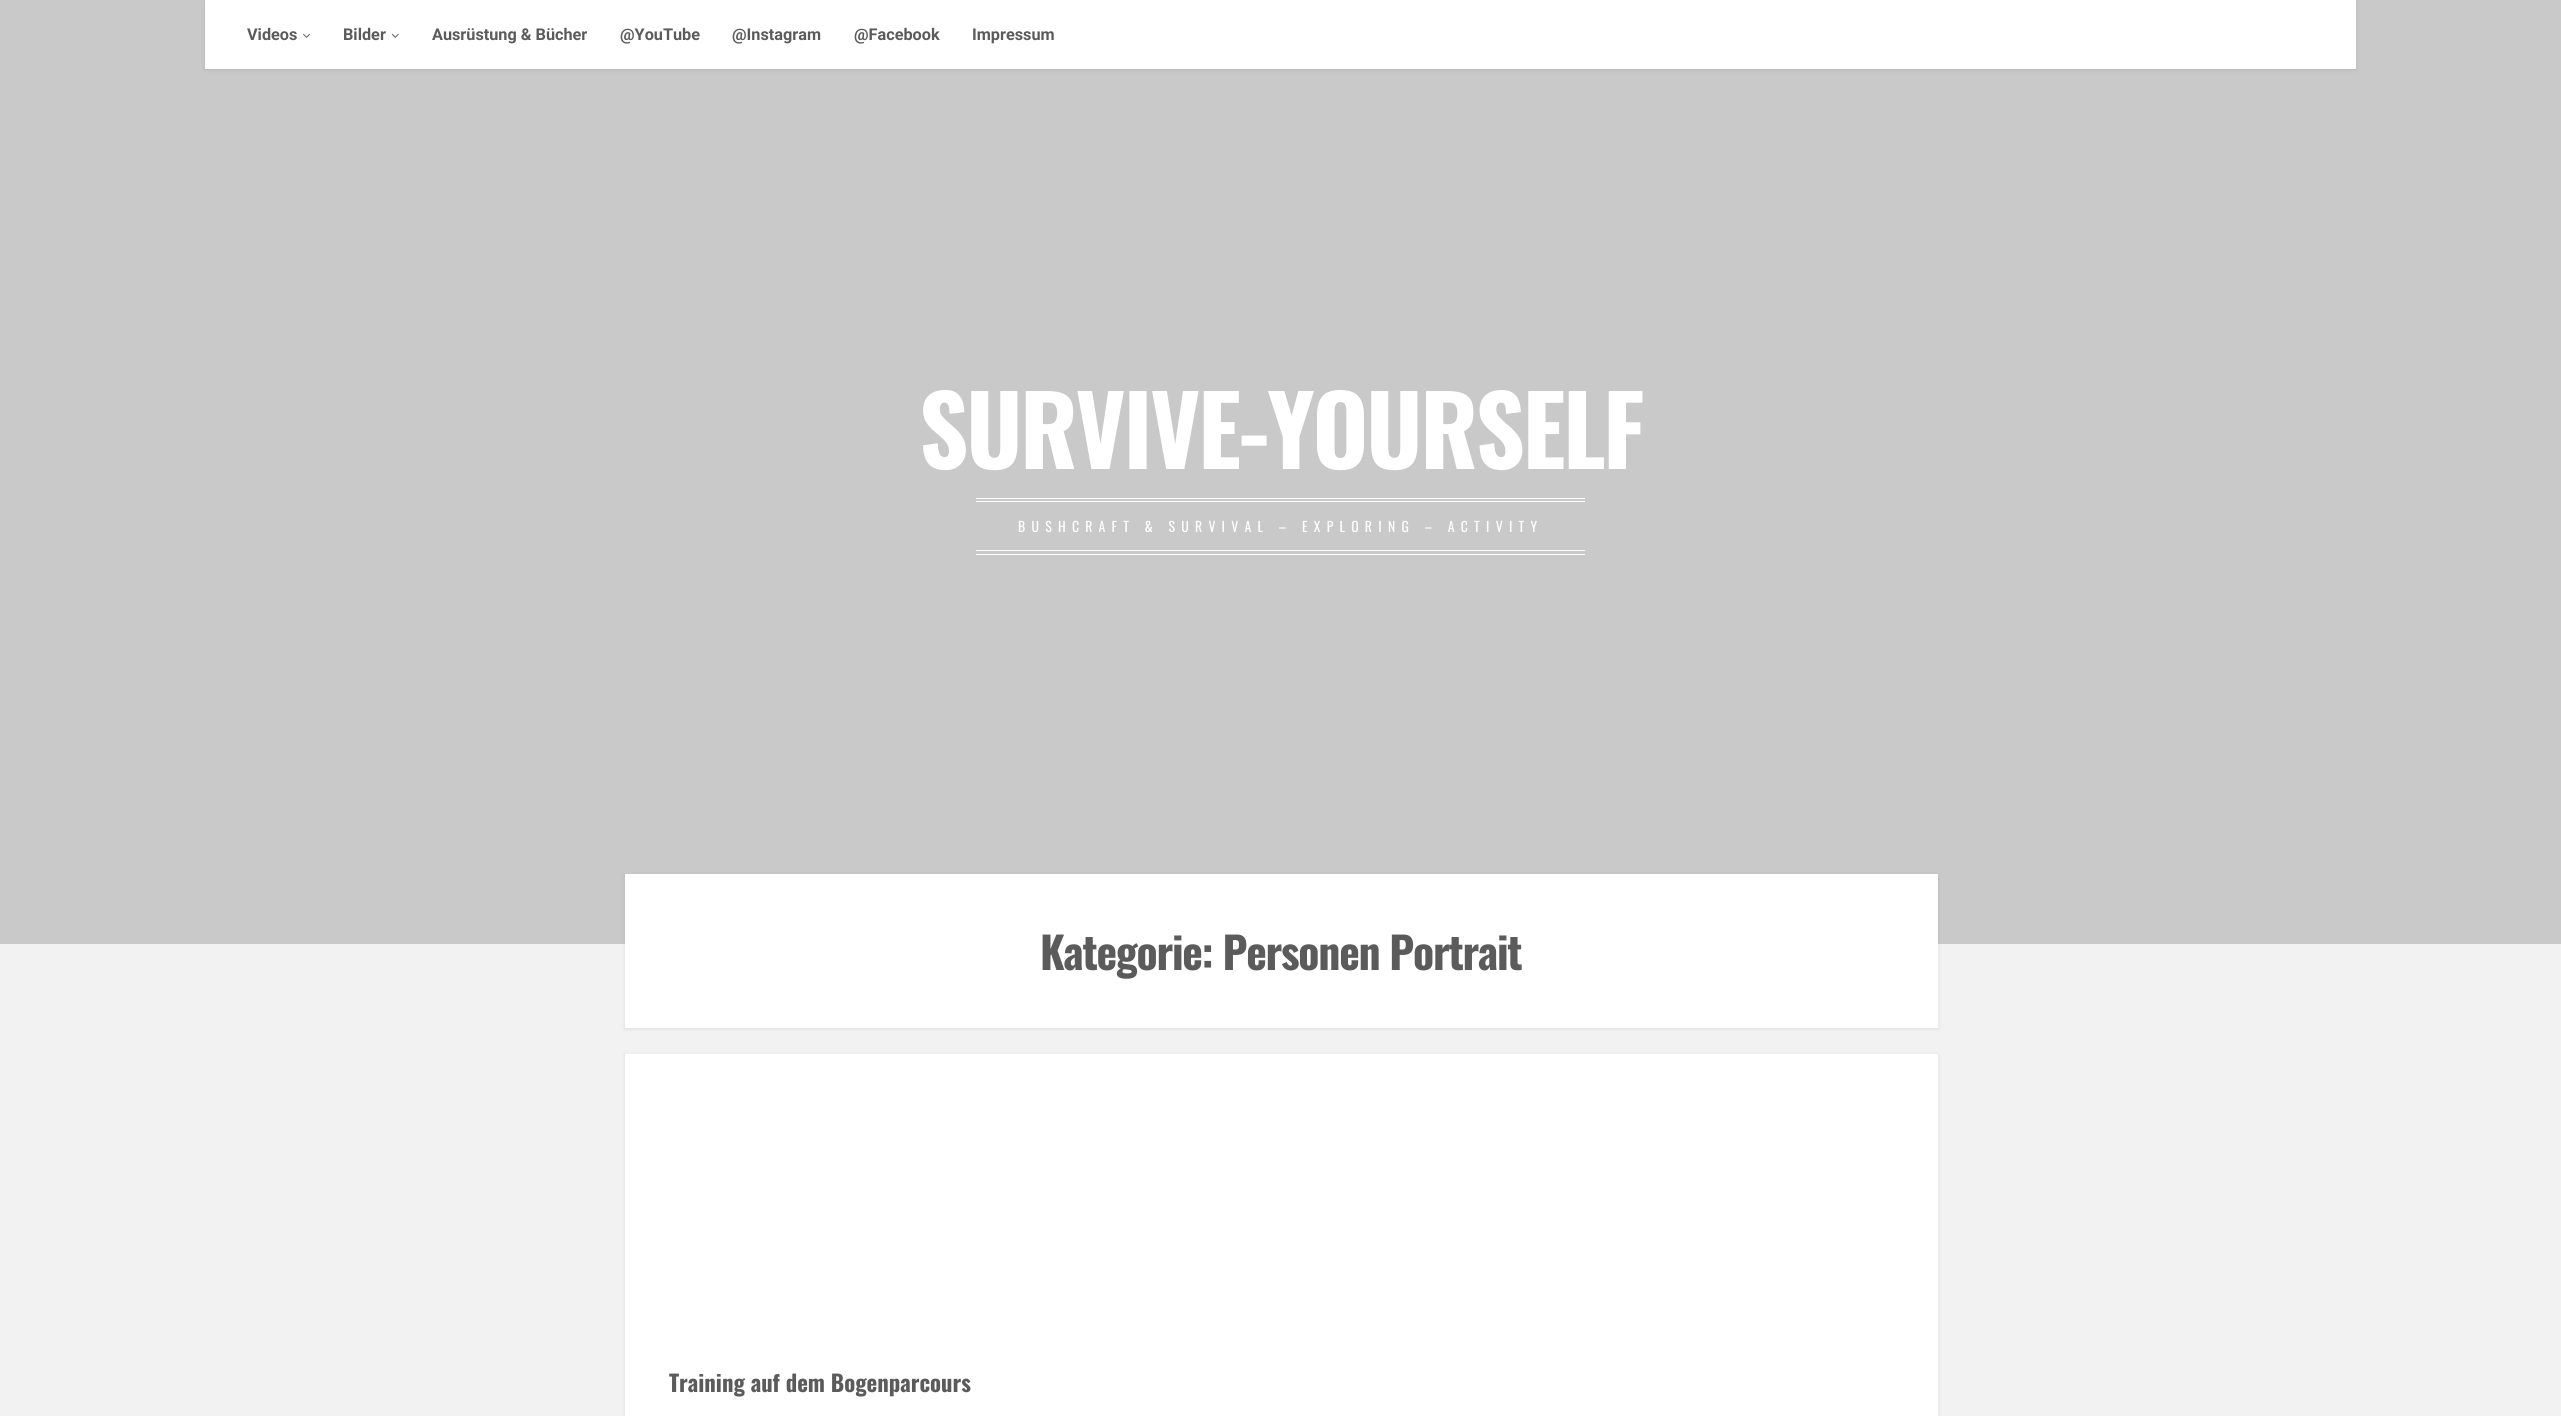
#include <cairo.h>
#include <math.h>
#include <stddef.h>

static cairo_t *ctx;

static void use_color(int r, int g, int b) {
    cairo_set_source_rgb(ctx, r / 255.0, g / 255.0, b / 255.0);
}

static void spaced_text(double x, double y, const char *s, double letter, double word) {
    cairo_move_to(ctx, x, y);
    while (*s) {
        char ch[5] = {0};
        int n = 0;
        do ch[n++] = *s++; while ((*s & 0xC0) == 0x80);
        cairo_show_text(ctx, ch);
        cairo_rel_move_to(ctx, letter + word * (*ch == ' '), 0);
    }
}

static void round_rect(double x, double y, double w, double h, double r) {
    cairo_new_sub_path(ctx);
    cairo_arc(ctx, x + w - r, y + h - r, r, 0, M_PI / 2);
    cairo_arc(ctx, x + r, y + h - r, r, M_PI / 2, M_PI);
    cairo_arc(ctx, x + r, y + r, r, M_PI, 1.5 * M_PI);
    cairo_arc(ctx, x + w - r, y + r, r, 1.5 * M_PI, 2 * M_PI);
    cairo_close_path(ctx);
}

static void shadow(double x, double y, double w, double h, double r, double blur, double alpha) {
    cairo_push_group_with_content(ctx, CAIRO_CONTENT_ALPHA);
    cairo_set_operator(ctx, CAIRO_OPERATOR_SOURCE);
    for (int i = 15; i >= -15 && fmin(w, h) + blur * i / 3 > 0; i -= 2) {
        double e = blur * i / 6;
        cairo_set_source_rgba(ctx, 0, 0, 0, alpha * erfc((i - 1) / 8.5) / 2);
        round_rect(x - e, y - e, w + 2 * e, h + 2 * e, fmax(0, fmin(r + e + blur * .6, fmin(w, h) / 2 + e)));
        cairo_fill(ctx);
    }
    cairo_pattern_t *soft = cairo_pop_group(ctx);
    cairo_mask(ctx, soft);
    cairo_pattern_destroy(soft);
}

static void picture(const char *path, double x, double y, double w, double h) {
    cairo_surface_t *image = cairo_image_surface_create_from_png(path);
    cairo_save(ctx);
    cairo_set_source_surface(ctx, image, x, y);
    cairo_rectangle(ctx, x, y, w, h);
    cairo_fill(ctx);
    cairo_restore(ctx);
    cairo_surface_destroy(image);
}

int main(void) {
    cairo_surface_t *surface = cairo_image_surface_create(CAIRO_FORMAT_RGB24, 2561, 1416);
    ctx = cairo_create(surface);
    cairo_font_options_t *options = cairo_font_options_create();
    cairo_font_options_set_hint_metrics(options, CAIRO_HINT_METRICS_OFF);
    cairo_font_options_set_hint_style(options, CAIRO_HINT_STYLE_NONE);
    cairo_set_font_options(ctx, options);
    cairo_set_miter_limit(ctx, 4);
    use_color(242, 242, 242);
    cairo_paint(ctx);
    use_color(201, 201, 201);
    cairo_rectangle(ctx, 0, 0, 2561, 944);
    cairo_fill(ctx);
    use_color(13, 13, 13);
    shadow(205, 1, 2151, 69, 0, 2, 0.1);
    use_color(255, 255, 255);
    cairo_rectangle(ctx, 205, 0, 2151, 69);
    cairo_fill(ctx);
    cairo_select_font_face(ctx, "Roboto", CAIRO_FONT_SLANT_NORMAL, CAIRO_FONT_WEIGHT_BOLD);
    cairo_set_font_size(ctx, 16.25);
    use_color(91, 91, 91);
    cairo_move_to(ctx, 247, 40);
    cairo_show_text(ctx, "Videos");
    picture("img1.png", 303, 33, 7, 5);
    cairo_move_to(ctx, 343, 40);
    cairo_show_text(ctx, "Bilder");
    picture("img2.png", 391, 33, 8, 5);
    cairo_move_to(ctx, 432, 40);
    cairo_show_text(ctx, "Ausrüstung & Bücher");
    cairo_move_to(ctx, 620, 40);
    cairo_show_text(ctx, "@YouTube");
    cairo_move_to(ctx, 732, 40);
    cairo_show_text(ctx, "@Instagram");
    cairo_move_to(ctx, 854, 40);
    cairo_show_text(ctx, "@Facebook");
    cairo_move_to(ctx, 972, 40);
    cairo_show_text(ctx, "Impressum");
    cairo_select_font_face(ctx, "Oswald", CAIRO_FONT_SLANT_NORMAL, CAIRO_FONT_WEIGHT_BOLD);
    cairo_set_font_size(ctx, 96.25);
    use_color(255, 255, 255);
    spaced_text(919, 469, "SURVIVE-YOURSELF", -2.5, 0);
    cairo_rectangle(ctx, 976, 498, 609, 1);
    cairo_fill(ctx);
    cairo_rectangle(ctx, 976, 501, 609, 1);
    cairo_fill(ctx);
    cairo_rectangle(ctx, 976, 550, 609, 1);
    cairo_fill(ctx);
    cairo_rectangle(ctx, 976, 554, 609, 1);
    cairo_fill(ctx);
    cairo_select_font_face(ctx, "Oswald", CAIRO_FONT_SLANT_NORMAL, CAIRO_FONT_WEIGHT_NORMAL);
    cairo_set_font_size(ctx, 13.75);
    spaced_text(1018, 532, "BUSHCRAFT & SURVIVAL – EXPLORING – ACTIVITY", 6.25, 0);
    use_color(13, 13, 13);
    shadow(625, 875, 1313, 154, 0, 2, 0.1);
    use_color(255, 255, 255);
    cairo_rectangle(ctx, 625, 874, 1313, 154);
    cairo_fill(ctx);
    cairo_select_font_face(ctx, "Oswald", CAIRO_FONT_SLANT_NORMAL, CAIRO_FONT_WEIGHT_BOLD);
    cairo_set_font_size(ctx, 43.75);
    use_color(91, 91, 91);
    spaced_text(1040, 970, "Kategorie: Personen Portrait", -1.25, 0);
    use_color(13, 13, 13);
    shadow(625, 1055, 1313, 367, 0, 2, 0.1);
    use_color(255, 255, 255);
    cairo_rectangle(ctx, 625, 1054, 1313, 362);
    cairo_fill(ctx);
    cairo_set_font_size(ctx, 22.75);
    use_color(91, 91, 91);
    cairo_move_to(ctx, 669, 1392);
    cairo_show_text(ctx, "Training auf dem Bogenparcours");
    cairo_surface_write_to_png(surface, "result.png");
    cairo_font_options_destroy(options);
    cairo_destroy(ctx);
    cairo_surface_destroy(surface);
    return 0;
}
